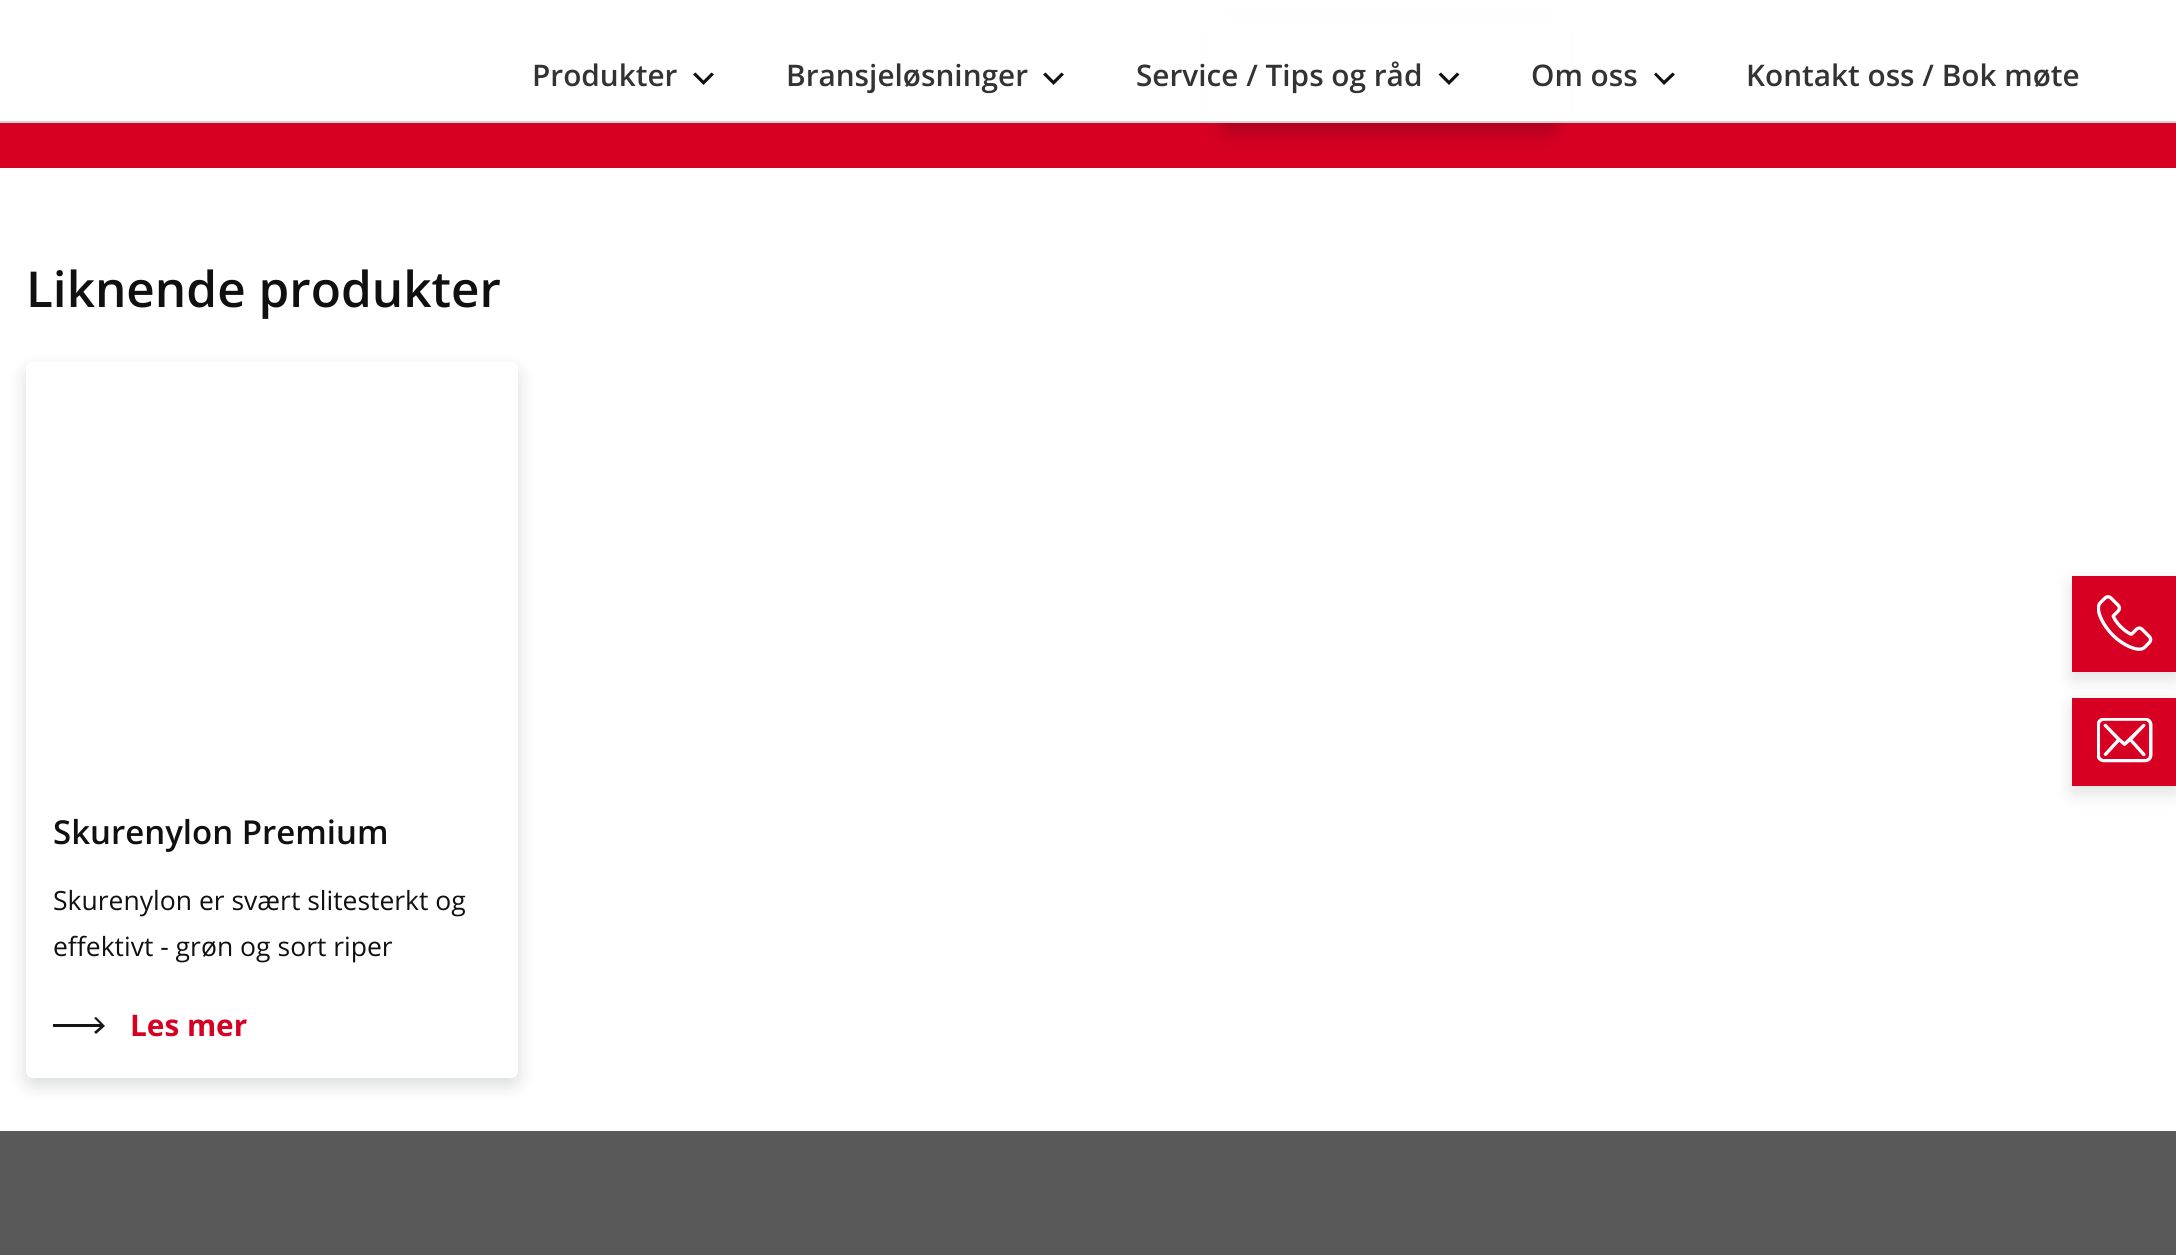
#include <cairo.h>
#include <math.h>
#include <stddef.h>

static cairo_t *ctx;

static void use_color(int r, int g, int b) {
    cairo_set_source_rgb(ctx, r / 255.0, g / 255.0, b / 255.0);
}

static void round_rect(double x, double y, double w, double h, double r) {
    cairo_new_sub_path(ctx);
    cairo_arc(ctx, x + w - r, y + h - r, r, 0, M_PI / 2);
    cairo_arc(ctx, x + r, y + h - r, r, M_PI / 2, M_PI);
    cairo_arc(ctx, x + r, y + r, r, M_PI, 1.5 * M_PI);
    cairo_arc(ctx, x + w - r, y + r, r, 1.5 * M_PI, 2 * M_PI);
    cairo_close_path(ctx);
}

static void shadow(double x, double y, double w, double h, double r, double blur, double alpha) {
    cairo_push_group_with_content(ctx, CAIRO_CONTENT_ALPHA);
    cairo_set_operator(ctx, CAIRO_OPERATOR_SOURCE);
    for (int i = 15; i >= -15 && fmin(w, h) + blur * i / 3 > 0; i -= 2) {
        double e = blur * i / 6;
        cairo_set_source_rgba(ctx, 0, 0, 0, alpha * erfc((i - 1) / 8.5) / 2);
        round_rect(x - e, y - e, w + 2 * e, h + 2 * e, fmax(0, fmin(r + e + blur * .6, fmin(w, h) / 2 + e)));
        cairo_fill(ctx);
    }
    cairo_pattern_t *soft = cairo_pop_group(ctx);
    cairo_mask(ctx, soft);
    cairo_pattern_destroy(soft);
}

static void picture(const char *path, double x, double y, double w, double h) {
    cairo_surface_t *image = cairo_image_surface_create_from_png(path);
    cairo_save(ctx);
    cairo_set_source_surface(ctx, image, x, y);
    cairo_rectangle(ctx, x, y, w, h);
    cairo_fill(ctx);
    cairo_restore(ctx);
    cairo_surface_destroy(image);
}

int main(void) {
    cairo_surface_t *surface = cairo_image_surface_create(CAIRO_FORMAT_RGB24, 2176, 1255);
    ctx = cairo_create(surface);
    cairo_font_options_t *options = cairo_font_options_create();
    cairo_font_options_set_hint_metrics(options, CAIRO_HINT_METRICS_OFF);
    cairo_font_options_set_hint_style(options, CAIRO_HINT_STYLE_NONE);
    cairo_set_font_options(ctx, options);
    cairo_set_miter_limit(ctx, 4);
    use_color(255, 255, 255);
    cairo_paint(ctx);
    use_color(215, 0, 34);
    cairo_rectangle(ctx, 0, 123, 2176, 45);
    cairo_fill(ctx);
    use_color(3, 9, 14);
    shadow(1222, 32, 334, 101, 7, 9, 0.2);
    use_color(255, 255, 255);
    cairo_rectangle(ctx, 1207, 17, 364, 104);
    cairo_fill(ctx);
    use_color(206, 212, 218);
    cairo_rectangle(ctx, 0, 121, 2176, 2);
    cairo_fill(ctx);
    cairo_select_font_face(ctx, "Open Sans SemiBold", CAIRO_FONT_SLANT_NORMAL, CAIRO_FONT_WEIGHT_NORMAL);
    cairo_set_font_size(ctx, 29.75);
    use_color(51, 51, 51);
    cairo_move_to(ctx, 532, 86);
    cairo_show_text(ctx, "Produkter");
    use_color(16, 16, 16);
    cairo_new_path(ctx);
    cairo_move_to(ctx, 695.5, 72.5);
    cairo_line_to(ctx, 703.5, 80.5);
    cairo_line_to(ctx, 711.5, 72.5);
    cairo_line_to(ctx, 714, 74.5);
    cairo_line_to(ctx, 703.5, 85);
    cairo_line_to(ctx, 693, 74.5);
    cairo_close_path(ctx);
    cairo_fill(ctx);
    use_color(51, 51, 51);
    cairo_move_to(ctx, 786, 86);
    cairo_show_text(ctx, "Bransjeløsninger");
    use_color(16, 16, 16);
    cairo_new_path(ctx);
    cairo_move_to(ctx, 1045.5, 72.5);
    cairo_line_to(ctx, 1053.5, 80.5);
    cairo_line_to(ctx, 1061.5, 72.5);
    cairo_line_to(ctx, 1064, 74.5);
    cairo_line_to(ctx, 1053.5, 85);
    cairo_line_to(ctx, 1043, 74.5);
    cairo_close_path(ctx);
    cairo_fill(ctx);
    use_color(51, 51, 51);
    cairo_move_to(ctx, 1136, 86);
    cairo_show_text(ctx, "Service / Tips og råd");
    use_color(16, 16, 16);
    cairo_new_path(ctx);
    cairo_move_to(ctx, 1441, 72.5);
    cairo_line_to(ctx, 1449, 80.5);
    cairo_line_to(ctx, 1457, 72.5);
    cairo_line_to(ctx, 1459.5, 74.5);
    cairo_line_to(ctx, 1449, 85);
    cairo_line_to(ctx, 1438.5, 74.5);
    cairo_close_path(ctx);
    cairo_fill(ctx);
    use_color(51, 51, 51);
    cairo_move_to(ctx, 1531, 86);
    cairo_show_text(ctx, "Om oss");
    use_color(16, 16, 16);
    cairo_new_path(ctx);
    cairo_move_to(ctx, 1656, 72.5);
    cairo_line_to(ctx, 1664, 80.5);
    cairo_line_to(ctx, 1672.5, 72.5);
    cairo_line_to(ctx, 1675, 74.5);
    cairo_line_to(ctx, 1664, 85);
    cairo_line_to(ctx, 1654, 74.5);
    cairo_close_path(ctx);
    cairo_fill(ctx);
    use_color(51, 51, 51);
    cairo_move_to(ctx, 1746, 86);
    cairo_show_text(ctx, "Kontakt oss / Bok møte");
    cairo_set_font_size(ctx, 49.5);
    use_color(16, 16, 16);
    cairo_move_to(ctx, 26, 307);
    cairo_show_text(ctx, "Liknende produkter");
    use_color(3, 9, 14);
    shadow(26, 369, 492, 716, 7, 9, 0.15);
    use_color(255, 255, 255);
    round_rect(26, 362, 492, 716, 7);
    cairo_fill(ctx);
    cairo_set_font_size(ctx, 33);
    use_color(16, 16, 16);
    cairo_move_to(ctx, 53, 844);
    cairo_show_text(ctx, "Skurenylon Premium");
    cairo_select_font_face(ctx, "Open Sans", CAIRO_FONT_SLANT_NORMAL, CAIRO_FONT_WEIGHT_NORMAL);
    cairo_set_font_size(ctx, 26.5);
    cairo_move_to(ctx, 53, 910);
    cairo_show_text(ctx, "Skurenylon er svært slitesterkt og");
    cairo_move_to(ctx, 53, 956);
    cairo_show_text(ctx, "effektivt - grøn og sort riper");
    cairo_save(ctx);
    cairo_rectangle(ctx, 53, 1017, 52, 17);
    cairo_clip(ctx);
    use_color(21, 21, 21);
    cairo_new_path(ctx);
    cairo_move_to(ctx, 96, 1017);
    cairo_line_to(ctx, 94, 1018);
    cairo_line_to(ctx, 100, 1024);
    cairo_line_to(ctx, 52, 1024);
    cairo_line_to(ctx, 52, 1027);
    cairo_line_to(ctx, 100, 1027);
    cairo_line_to(ctx, 94, 1032);
    cairo_line_to(ctx, 96, 1034);
    cairo_line_to(ctx, 105, 1026);
    cairo_close_path(ctx);
    cairo_fill(ctx);
    cairo_restore(ctx);
    cairo_select_font_face(ctx, "Open Sans", CAIRO_FONT_SLANT_NORMAL, CAIRO_FONT_WEIGHT_BOLD);
    cairo_set_font_size(ctx, 29.75);
    use_color(215, 0, 34);
    cairo_move_to(ctx, 130, 1036);
    cairo_show_text(ctx, "Les mer");
    use_color(89, 89, 89);
    cairo_rectangle(ctx, 0, 1131, 2176, 124);
    cairo_fill(ctx);
    use_color(50, 50, 50);
    shadow(2072, 583, 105, 96, 0, 9, 0.15);
    use_color(215, 0, 34);
    cairo_rectangle(ctx, 2072, 576, 104, 96);
    cairo_fill(ctx);
    picture("img1.png", 2097, 595, 56, 56);
    use_color(50, 50, 50);
    shadow(2072, 705, 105, 88, 0, 9, 0.15);
    use_color(215, 0, 34);
    cairo_rectangle(ctx, 2072, 698, 104, 88);
    cairo_fill(ctx);
    picture("img2.png", 2097, 718, 56, 45);
    cairo_surface_write_to_png(surface, "result.png");
    cairo_font_options_destroy(options);
    cairo_destroy(ctx);
    cairo_surface_destroy(surface);
    return 0;
}
